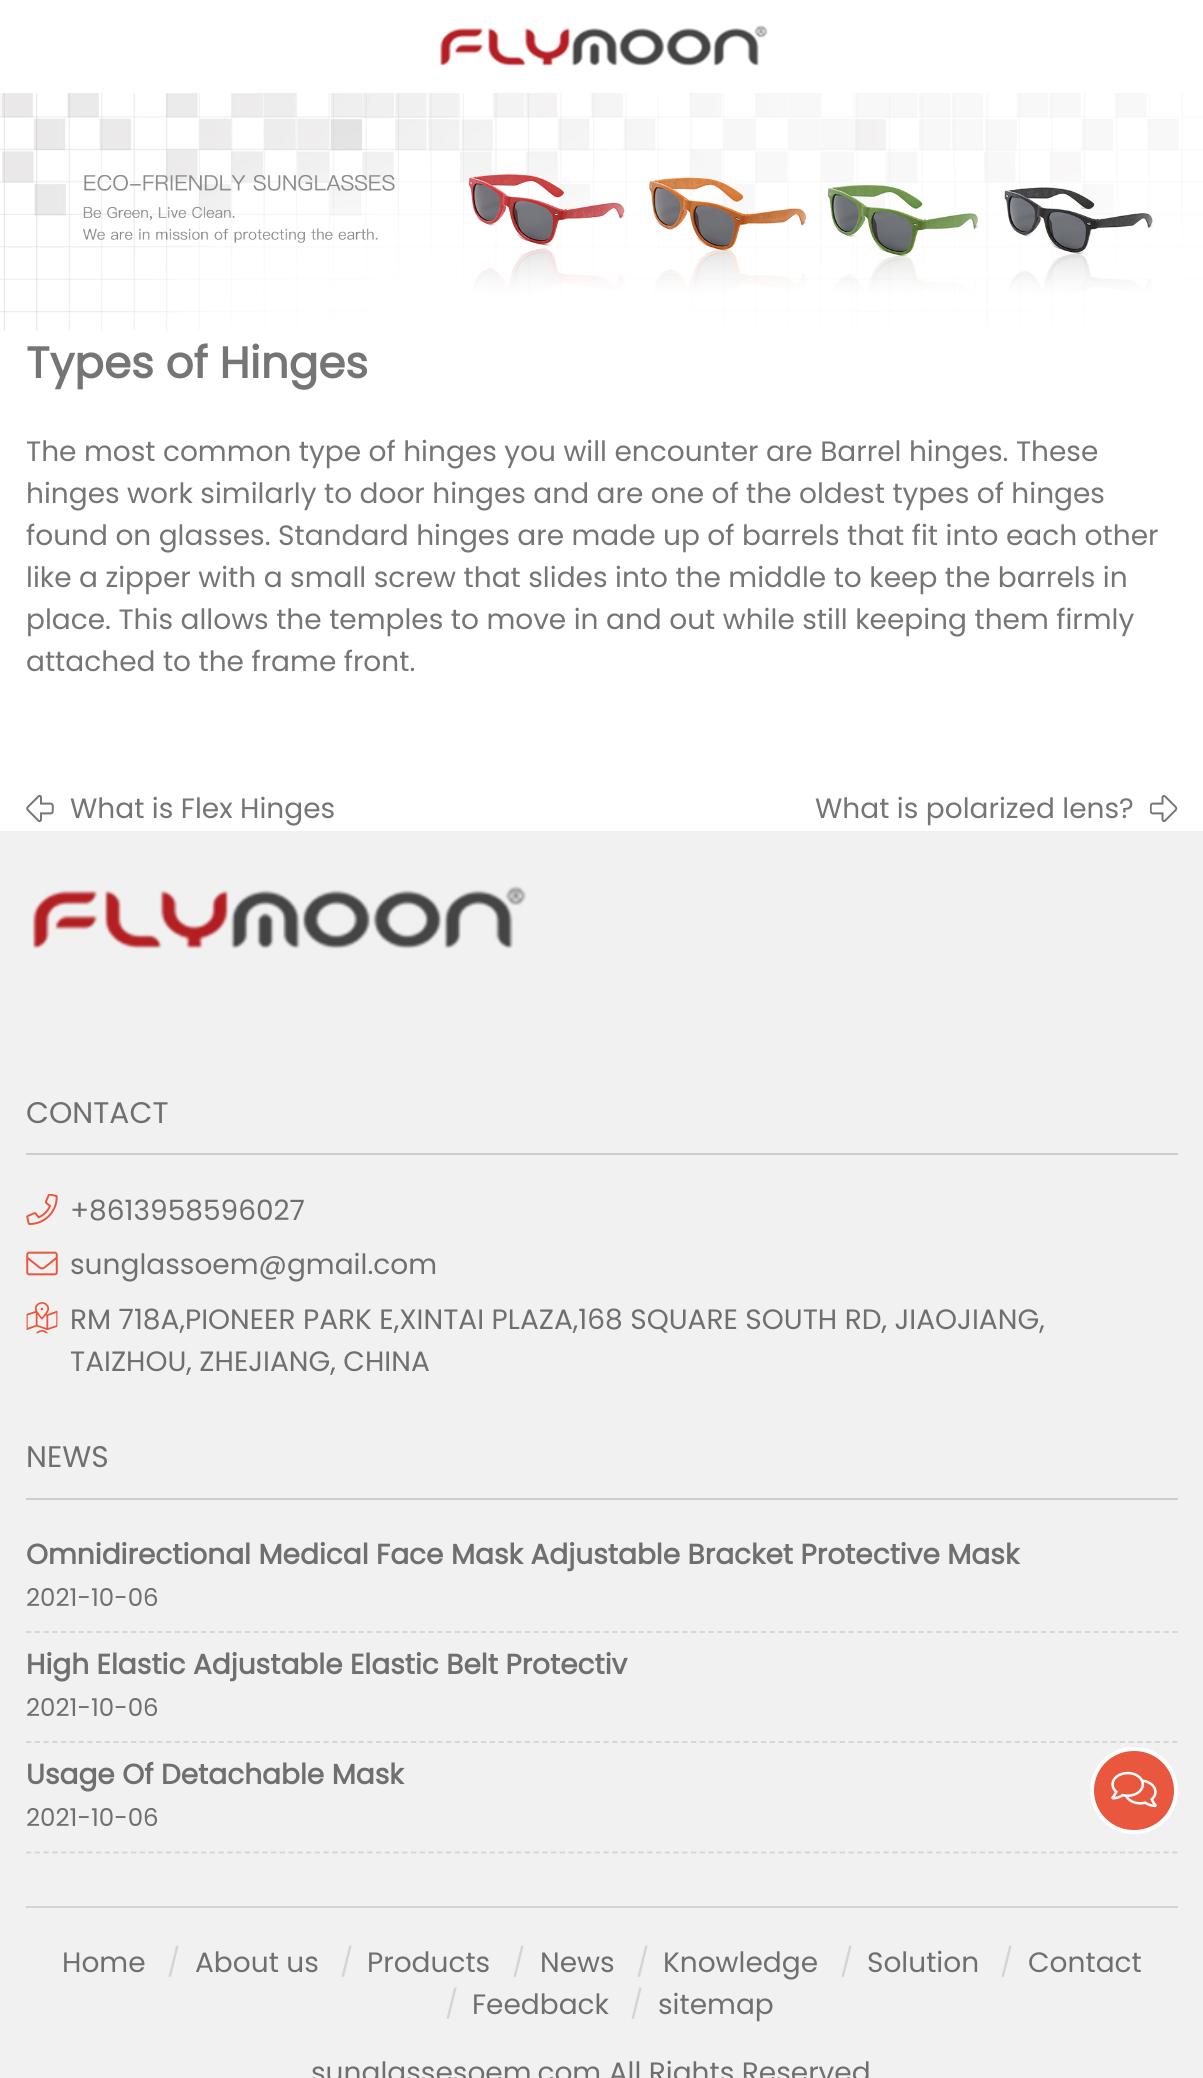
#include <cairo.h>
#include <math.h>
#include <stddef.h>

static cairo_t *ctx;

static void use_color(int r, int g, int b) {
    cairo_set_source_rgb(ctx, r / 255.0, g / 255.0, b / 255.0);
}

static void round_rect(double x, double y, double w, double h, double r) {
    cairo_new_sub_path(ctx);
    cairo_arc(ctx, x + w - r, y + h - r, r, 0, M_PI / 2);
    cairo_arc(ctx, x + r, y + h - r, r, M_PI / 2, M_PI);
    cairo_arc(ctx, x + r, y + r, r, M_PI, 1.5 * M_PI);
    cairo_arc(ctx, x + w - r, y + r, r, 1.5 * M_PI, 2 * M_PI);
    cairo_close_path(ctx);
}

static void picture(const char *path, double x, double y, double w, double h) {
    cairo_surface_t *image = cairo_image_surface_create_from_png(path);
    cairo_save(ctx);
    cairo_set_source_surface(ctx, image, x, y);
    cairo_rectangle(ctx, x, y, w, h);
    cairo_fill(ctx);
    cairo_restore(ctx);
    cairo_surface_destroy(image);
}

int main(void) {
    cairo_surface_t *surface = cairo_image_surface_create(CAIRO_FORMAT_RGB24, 1203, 2078);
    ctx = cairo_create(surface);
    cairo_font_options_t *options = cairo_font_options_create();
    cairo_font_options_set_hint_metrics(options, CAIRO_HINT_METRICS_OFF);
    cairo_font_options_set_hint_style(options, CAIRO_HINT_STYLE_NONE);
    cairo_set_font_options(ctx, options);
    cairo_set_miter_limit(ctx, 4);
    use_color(255, 255, 255);
    cairo_paint(ctx);
    picture("img1.png", 440, 25, 328, 41);
    picture("img2.png", 0, 93, 1203, 238);
    cairo_select_font_face(ctx, "Poppins", CAIRO_FONT_SLANT_NORMAL, CAIRO_FONT_WEIGHT_BOLD);
    cairo_set_font_size(ctx, 43.75);
    use_color(117, 117, 117);
    cairo_move_to(ctx, 26, 378);
    cairo_show_text(ctx, "Types of Hinges");
    cairo_select_font_face(ctx, "Poppins", CAIRO_FONT_SLANT_NORMAL, CAIRO_FONT_WEIGHT_NORMAL);
    cairo_set_font_size(ctx, 28);
    cairo_move_to(ctx, 26, 461);
    cairo_show_text(ctx, "The most common type of hinges you will encounter are Barrel hinges. These");
    cairo_move_to(ctx, 26, 503);
    cairo_show_text(ctx, "hinges work similarly to door hinges and are one of the oldest types of hinges");
    cairo_move_to(ctx, 26, 545);
    cairo_show_text(ctx, "found on glasses. Standard hinges are made up of barrels that fit into each other");
    cairo_move_to(ctx, 26, 587);
    cairo_show_text(ctx, "like a zipper with a small screw that slides into the middle to keep the barrels in");
    cairo_move_to(ctx, 26, 629);
    cairo_show_text(ctx, "place. This allows the temples to move in and out while still keeping them firmly");
    cairo_move_to(ctx, 26, 671);
    cairo_show_text(ctx, "attached to the frame front.");
    picture("img3.png", 26, 794, 28, 29);
    cairo_move_to(ctx, 70, 818);
    cairo_show_text(ctx, "What is Flex Hinges");
    cairo_move_to(ctx, 815, 818);
    cairo_show_text(ctx, "What is polarized lens?");
    picture("img4.png", 1150, 795, 28, 27);
    use_color(241, 241, 241);
    cairo_rectangle(ctx, 0, 831, 1203, 1247);
    cairo_fill(ctx);
    picture("img5.png", 32, 885, 495, 64);
    use_color(205, 205, 205);
    cairo_rectangle(ctx, 26, 1153, 1152, 2);
    cairo_fill(ctx);
    cairo_set_font_size(ctx, 29.75);
    use_color(111, 111, 111);
    cairo_move_to(ctx, 26, 1123);
    cairo_show_text(ctx, "CONTACT");
    picture("img6.png", 26, 1194, 32, 31);
    cairo_set_font_size(ctx, 28);
    cairo_move_to(ctx, 70, 1220);
    cairo_show_text(ctx, "+8613958596027");
    picture("img7.png", 26, 1251, 32, 25);
    cairo_move_to(ctx, 70, 1274);
    cairo_show_text(ctx, "sunglassoem@gmail.com");
    picture("img8.png", 26, 1302, 32, 32);
    cairo_move_to(ctx, 70, 1329);
    cairo_show_text(ctx, "RM 718A,PIONEER PARK E,XINTAI PLAZA,168 SQUARE SOUTH RD, JIAOJIANG,");
    cairo_move_to(ctx, 70, 1371);
    cairo_show_text(ctx, "TAIZHOU, ZHEJIANG, CHINA");
    use_color(205, 205, 205);
    cairo_rectangle(ctx, 26, 1498, 1152, 2);
    cairo_fill(ctx);
    cairo_set_font_size(ctx, 29.75);
    use_color(111, 111, 111);
    cairo_move_to(ctx, 26, 1467);
    cairo_show_text(ctx, "NEWS");
    cairo_new_path(ctx);
    cairo_move_to(ctx, 26, 1632);
    cairo_line_to(ctx, 1178, 1632);
    use_color(212, 212, 212);
    cairo_set_line_width(ctx, 1.8);
    cairo_set_dash(ctx, (double[]){5.25, 3.5}, 2, 0);
    cairo_stroke(ctx);
    cairo_select_font_face(ctx, "Poppins", CAIRO_FONT_SLANT_NORMAL, CAIRO_FONT_WEIGHT_BOLD);
    cairo_set_font_size(ctx, 28);
    use_color(111, 111, 111);
    cairo_move_to(ctx, 26, 1564);
    cairo_show_text(ctx, "Omnidirectional Medical Face Mask Adjustable Bracket Protective Mask");
    cairo_select_font_face(ctx, "Poppins", CAIRO_FONT_SLANT_NORMAL, CAIRO_FONT_WEIGHT_NORMAL);
    cairo_set_font_size(ctx, 24.5);
    cairo_move_to(ctx, 26, 1606);
    cairo_show_text(ctx, "2021-10-06");
    cairo_new_path(ctx);
    cairo_move_to(ctx, 26, 1742);
    cairo_line_to(ctx, 1178, 1742);
    use_color(212, 212, 212);
    cairo_stroke(ctx);
    cairo_select_font_face(ctx, "Poppins", CAIRO_FONT_SLANT_NORMAL, CAIRO_FONT_WEIGHT_BOLD);
    cairo_set_font_size(ctx, 28);
    use_color(111, 111, 111);
    cairo_move_to(ctx, 26, 1674);
    cairo_show_text(ctx, "High Elastic Adjustable Elastic Belt Protectiv");
    cairo_select_font_face(ctx, "Poppins", CAIRO_FONT_SLANT_NORMAL, CAIRO_FONT_WEIGHT_NORMAL);
    cairo_set_font_size(ctx, 24.5);
    cairo_move_to(ctx, 26, 1716);
    cairo_show_text(ctx, "2021-10-06");
    cairo_new_path(ctx);
    cairo_move_to(ctx, 26, 1852.5);
    cairo_line_to(ctx, 1178, 1852.5);
    use_color(212, 212, 212);
    cairo_stroke(ctx);
    cairo_select_font_face(ctx, "Poppins", CAIRO_FONT_SLANT_NORMAL, CAIRO_FONT_WEIGHT_BOLD);
    cairo_set_font_size(ctx, 28);
    use_color(111, 111, 111);
    cairo_move_to(ctx, 26, 1784);
    cairo_show_text(ctx, "Usage Of Detachable Mask");
    cairo_select_font_face(ctx, "Poppins", CAIRO_FONT_SLANT_NORMAL, CAIRO_FONT_WEIGHT_NORMAL);
    cairo_set_font_size(ctx, 24.5);
    cairo_move_to(ctx, 26, 1826);
    cairo_show_text(ctx, "2021-10-06");
    use_color(212, 212, 212);
    cairo_rectangle(ctx, 26, 1906, 1152, 2);
    cairo_fill(ctx);
    cairo_set_font_size(ctx, 28);
    use_color(111, 111, 111);
    cairo_move_to(ctx, 62, 1972);
    cairo_show_text(ctx, "Home");
    use_color(212, 212, 212);
    cairo_move_to(ctx, 167, 1972);
    cairo_show_text(ctx, "/");
    use_color(111, 111, 111);
    cairo_move_to(ctx, 195, 1972);
    cairo_show_text(ctx, "About us");
    use_color(212, 212, 212);
    cairo_move_to(ctx, 340, 1972);
    cairo_show_text(ctx, "/");
    use_color(111, 111, 111);
    cairo_move_to(ctx, 367, 1972);
    cairo_show_text(ctx, "Products");
    use_color(212, 212, 212);
    cairo_move_to(ctx, 512, 1972);
    cairo_show_text(ctx, "/");
    use_color(111, 111, 111);
    cairo_move_to(ctx, 540, 1972);
    cairo_show_text(ctx, "News");
    use_color(212, 212, 212);
    cairo_move_to(ctx, 636, 1972);
    cairo_show_text(ctx, "/");
    use_color(111, 111, 111);
    cairo_move_to(ctx, 663, 1972);
    cairo_show_text(ctx, "Knowledge");
    use_color(212, 212, 212);
    cairo_move_to(ctx, 840, 1972);
    cairo_show_text(ctx, "/");
    use_color(111, 111, 111);
    cairo_move_to(ctx, 867, 1972);
    cairo_show_text(ctx, "Solution");
    use_color(212, 212, 212);
    cairo_move_to(ctx, 1000, 1972);
    cairo_show_text(ctx, "/");
    use_color(111, 111, 111);
    cairo_move_to(ctx, 1028, 1972);
    cairo_show_text(ctx, "Contact");
    use_color(212, 212, 212);
    cairo_move_to(ctx, 445, 2014);
    cairo_show_text(ctx, "/");
    use_color(111, 111, 111);
    cairo_move_to(ctx, 472, 2014);
    cairo_show_text(ctx, "Feedback");
    use_color(212, 212, 212);
    cairo_move_to(ctx, 630, 2014);
    cairo_show_text(ctx, "/");
    use_color(111, 111, 111);
    cairo_move_to(ctx, 658, 2014);
    cairo_show_text(ctx, "sitemap");
    cairo_move_to(ctx, 311, 2082);
    cairo_show_text(ctx, "sunglassesoem.com All Rights Reserved");
    use_color(233, 87, 63);
    round_rect(1092, 1749, 84, 83, 41.5);
    cairo_fill_preserve(ctx);
    use_color(255, 255, 255);
    cairo_set_line_width(ctx, 4);
    cairo_set_dash(ctx, NULL, 0, 0);
    cairo_stroke(ctx);
    picture("img9.png", 1111, 1771, 46, 37);
    cairo_surface_write_to_png(surface, "result.png");
    cairo_font_options_destroy(options);
    cairo_destroy(ctx);
    cairo_surface_destroy(surface);
    return 0;
}
